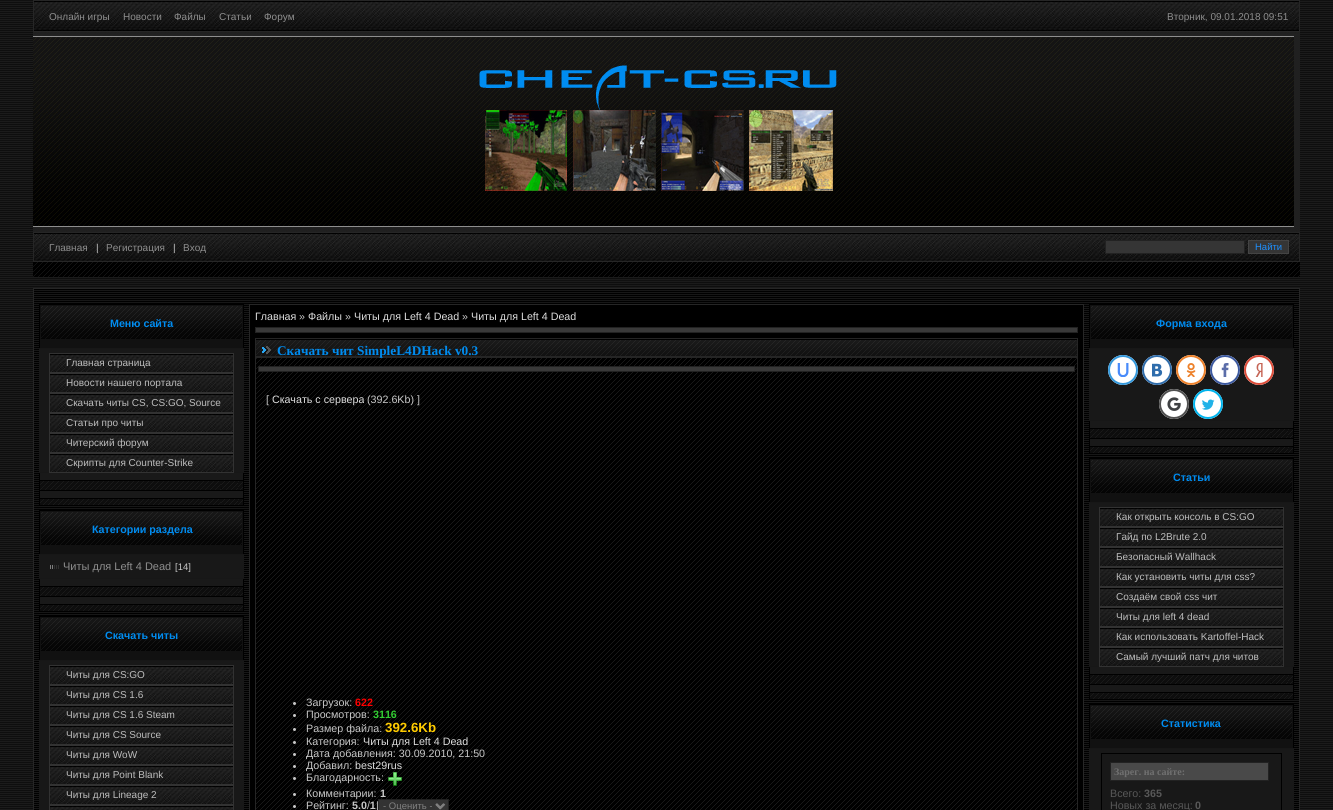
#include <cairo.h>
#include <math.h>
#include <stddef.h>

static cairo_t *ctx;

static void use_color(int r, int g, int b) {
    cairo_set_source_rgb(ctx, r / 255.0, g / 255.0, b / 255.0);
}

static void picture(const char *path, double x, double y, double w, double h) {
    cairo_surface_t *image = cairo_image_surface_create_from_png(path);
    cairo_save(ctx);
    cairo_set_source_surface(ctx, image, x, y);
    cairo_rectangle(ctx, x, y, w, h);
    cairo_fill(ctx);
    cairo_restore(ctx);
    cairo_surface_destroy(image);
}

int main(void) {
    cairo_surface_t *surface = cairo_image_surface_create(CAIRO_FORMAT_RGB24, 1333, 810);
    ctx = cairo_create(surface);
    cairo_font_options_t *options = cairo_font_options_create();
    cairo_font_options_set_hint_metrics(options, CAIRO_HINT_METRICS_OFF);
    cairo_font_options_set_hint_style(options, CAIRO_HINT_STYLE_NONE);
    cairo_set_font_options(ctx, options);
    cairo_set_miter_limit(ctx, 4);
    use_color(255, 255, 255);
    cairo_paint(ctx);
    picture("img1.png", 0, 0, 1333, 810);
    picture("img2.png", 33, 262, 1267, 15);
    picture("img3.png", 34, 1, 1265, 30);
    cairo_rectangle(ctx, 33.5, 0.5, 1266, 31);
    use_color(38, 38, 38);
    cairo_set_line_width(ctx, 1);
    cairo_stroke(ctx);
    cairo_select_font_face(ctx, "Liberation Sans", CAIRO_FONT_SLANT_NORMAL, CAIRO_FONT_WEIGHT_NORMAL);
    cairo_set_font_size(ctx, 10);
    use_color(142, 142, 142);
    cairo_move_to(ctx, 49, 20);
    cairo_show_text(ctx, "Онлайн игры");
    cairo_move_to(ctx, 123, 20);
    cairo_show_text(ctx, "Новости");
    cairo_move_to(ctx, 174, 20);
    cairo_show_text(ctx, "Файлы");
    cairo_move_to(ctx, 219, 20);
    cairo_show_text(ctx, "Статьи");
    cairo_move_to(ctx, 264, 20);
    cairo_show_text(ctx, "Форум");
    cairo_move_to(ctx, 1167, 20);
    cairo_show_text(ctx, "Вторник, 09.01.2018 09:51");
    picture("img4.png", 33, 32, 1267, 200);
    picture("img5.png", 479, 65, 358, 126);
    use_color(32, 32, 32);
    cairo_rectangle(ctx, 1294, 36, 6, 191);
    cairo_fill(ctx);
    picture("img6.png", 34, 233, 1265, 28);
    cairo_rectangle(ctx, 33.5, 232.5, 1266, 29);
    use_color(38, 38, 38);
    cairo_stroke(ctx);
    use_color(142, 142, 142);
    cairo_move_to(ctx, 49, 251);
    cairo_show_text(ctx, "Главная");
    use_color(200, 200, 200);
    cairo_move_to(ctx, 96, 251);
    cairo_show_text(ctx, "|");
    use_color(142, 142, 142);
    cairo_move_to(ctx, 106, 251);
    cairo_show_text(ctx, "Регистрация");
    use_color(200, 200, 200);
    cairo_move_to(ctx, 173, 251);
    cairo_show_text(ctx, "|");
    use_color(142, 142, 142);
    cairo_move_to(ctx, 183, 251);
    cairo_show_text(ctx, "Вход");
    use_color(53, 53, 53);
    cairo_rectangle(ctx, 1105.5, 240.5, 139, 13);
    cairo_fill_preserve(ctx);
    use_color(34, 34, 34);
    cairo_stroke(ctx);
    use_color(53, 53, 53);
    cairo_rectangle(ctx, 1248.5, 240.5, 40, 13);
    cairo_fill_preserve(ctx);
    use_color(68, 68, 68);
    cairo_stroke(ctx);
    cairo_set_font_size(ctx, 9.5);
    use_color(30, 144, 255);
    cairo_move_to(ctx, 1255, 250);
    cairo_show_text(ctx, "Найти");
    use_color(0, 0, 0);
    cairo_rectangle(ctx, 34, 809, 1265, 1);
    cairo_fill(ctx);
    picture("img7.png", 34, 289, 1265, 520);
    cairo_rectangle(ctx, 33.5, 288.5, 1266, 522);
    use_color(38, 38, 38);
    cairo_stroke(ctx);
    picture("img8.png", 39, 304, 205, 44);
    cairo_select_font_face(ctx, "Liberation Sans", CAIRO_FONT_SLANT_NORMAL, CAIRO_FONT_WEIGHT_BOLD);
    cairo_set_font_size(ctx, 10.7);
    use_color(0, 140, 240);
    cairo_move_to(ctx, 110, 327);
    cairo_show_text(ctx, "Меню сайта");
    use_color(24, 24, 24);
    cairo_rectangle(ctx, 39, 349, 205, 123);
    cairo_fill(ctx);
    picture("img9.png", 50, 354, 183, 18);
    cairo_rectangle(ctx, 49.5, 353.5, 184, 19);
    use_color(50, 50, 50);
    cairo_stroke(ctx);
    cairo_select_font_face(ctx, "Liberation Sans", CAIRO_FONT_SLANT_NORMAL, CAIRO_FONT_WEIGHT_NORMAL);
    cairo_set_font_size(ctx, 10);
    use_color(189, 189, 189);
    cairo_move_to(ctx, 66, 366);
    cairo_show_text(ctx, "Главная страница");
    picture("img9.png", 50, 374, 183, 18);
    cairo_rectangle(ctx, 49.5, 373.5, 184, 19);
    use_color(50, 50, 50);
    cairo_stroke(ctx);
    use_color(189, 189, 189);
    cairo_move_to(ctx, 66, 386);
    cairo_show_text(ctx, "Новости нашего портала");
    picture("img9.png", 50, 394, 183, 18);
    cairo_rectangle(ctx, 49.5, 393.5, 184, 19);
    use_color(50, 50, 50);
    cairo_stroke(ctx);
    use_color(189, 189, 189);
    cairo_move_to(ctx, 66, 406);
    cairo_show_text(ctx, "Скачать читы CS, CS:GO, Source");
    picture("img9.png", 50, 414, 183, 18);
    cairo_rectangle(ctx, 49.5, 413.5, 184, 19);
    use_color(50, 50, 50);
    cairo_stroke(ctx);
    use_color(189, 189, 189);
    cairo_move_to(ctx, 66, 426);
    cairo_show_text(ctx, "Статьи про читы");
    picture("img9.png", 50, 434, 183, 18);
    cairo_rectangle(ctx, 49.5, 433.5, 184, 19);
    use_color(50, 50, 50);
    cairo_stroke(ctx);
    use_color(189, 189, 189);
    cairo_move_to(ctx, 66, 446);
    cairo_show_text(ctx, "Читерский форум");
    picture("img9.png", 50, 454, 183, 18);
    cairo_rectangle(ctx, 49.5, 453.5, 184, 19);
    use_color(50, 50, 50);
    cairo_stroke(ctx);
    use_color(189, 189, 189);
    cairo_move_to(ctx, 66, 466);
    cairo_show_text(ctx, "Cкрипты для Counter-Strike");
    picture("img10.png", 39, 473, 205, 32);
    picture("img8.png", 39, 510, 205, 44);
    cairo_select_font_face(ctx, "Liberation Sans", CAIRO_FONT_SLANT_NORMAL, CAIRO_FONT_WEIGHT_BOLD);
    cairo_set_font_size(ctx, 10.7);
    use_color(0, 140, 240);
    cairo_move_to(ctx, 92, 533);
    cairo_show_text(ctx, "Категории раздела");
    use_color(24, 24, 24);
    cairo_rectangle(ctx, 39, 555, 205, 23);
    cairo_fill(ctx);
    picture("img11.png", 50, 565, 9, 4);
    cairo_select_font_face(ctx, "Liberation Sans", CAIRO_FONT_SLANT_NORMAL, CAIRO_FONT_WEIGHT_NORMAL);
    cairo_set_font_size(ctx, 11);
    use_color(142, 142, 142);
    cairo_move_to(ctx, 63, 570);
    cairo_show_text(ctx, "Читы для Left 4 Dead");
    cairo_set_font_size(ctx, 9.5);
    use_color(200, 200, 200);
    cairo_move_to(ctx, 175, 570);
    cairo_show_text(ctx, "[14]");
    picture("img10.png", 39, 579, 205, 32);
    picture("img8.png", 39, 616, 205, 44);
    cairo_select_font_face(ctx, "Liberation Sans", CAIRO_FONT_SLANT_NORMAL, CAIRO_FONT_WEIGHT_BOLD);
    cairo_set_font_size(ctx, 10.7);
    use_color(0, 140, 240);
    cairo_move_to(ctx, 105, 639);
    cairo_show_text(ctx, "Скачать читы");
    use_color(24, 24, 24);
    cairo_rectangle(ctx, 39, 661, 205, 149);
    cairo_fill(ctx);
    picture("img9.png", 50, 666, 183, 18);
    cairo_rectangle(ctx, 49.5, 665.5, 184, 19);
    use_color(50, 50, 50);
    cairo_stroke(ctx);
    cairo_select_font_face(ctx, "Liberation Sans", CAIRO_FONT_SLANT_NORMAL, CAIRO_FONT_WEIGHT_NORMAL);
    cairo_set_font_size(ctx, 10);
    use_color(189, 189, 189);
    cairo_move_to(ctx, 66, 678);
    cairo_show_text(ctx, "Читы для CS:GO");
    picture("img9.png", 50, 686, 183, 18);
    cairo_rectangle(ctx, 49.5, 685.5, 184, 19);
    use_color(50, 50, 50);
    cairo_stroke(ctx);
    use_color(189, 189, 189);
    cairo_move_to(ctx, 66, 698);
    cairo_show_text(ctx, "Читы для CS 1.6");
    picture("img9.png", 50, 706, 183, 18);
    cairo_rectangle(ctx, 49.5, 705.5, 184, 19);
    use_color(50, 50, 50);
    cairo_stroke(ctx);
    use_color(189, 189, 189);
    cairo_move_to(ctx, 66, 718);
    cairo_show_text(ctx, "Читы для CS 1.6 Steam");
    picture("img9.png", 50, 726, 183, 18);
    cairo_rectangle(ctx, 49.5, 725.5, 184, 19);
    use_color(50, 50, 50);
    cairo_stroke(ctx);
    use_color(189, 189, 189);
    cairo_move_to(ctx, 66, 738);
    cairo_show_text(ctx, "Читы для CS Source");
    picture("img9.png", 50, 746, 183, 18);
    cairo_rectangle(ctx, 49.5, 745.5, 184, 19);
    use_color(50, 50, 50);
    cairo_stroke(ctx);
    use_color(189, 189, 189);
    cairo_move_to(ctx, 66, 758);
    cairo_show_text(ctx, "Читы для WoW");
    picture("img9.png", 50, 766, 183, 18);
    cairo_rectangle(ctx, 49.5, 765.5, 184, 19);
    use_color(50, 50, 50);
    cairo_stroke(ctx);
    use_color(189, 189, 189);
    cairo_move_to(ctx, 66, 778);
    cairo_show_text(ctx, "Читы для Point Blank");
    picture("img9.png", 50, 786, 183, 18);
    cairo_rectangle(ctx, 49.5, 785.5, 184, 19);
    use_color(50, 50, 50);
    cairo_stroke(ctx);
    use_color(189, 189, 189);
    cairo_move_to(ctx, 66, 798);
    cairo_show_text(ctx, "Читы для Lineage 2");
    picture("img12.png", 50, 806, 183, 4);
    cairo_rectangle(ctx, 49.5, 805.5, 184, 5);
    use_color(50, 50, 50);
    cairo_stroke(ctx);
    cairo_rectangle(ctx, 249.5, 304.5, 834, 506);
    use_color(38, 38, 38);
    cairo_stroke(ctx);
    use_color(0, 0, 0);
    cairo_rectangle(ctx, 250, 306, 833, 503);
    cairo_fill(ctx);
    cairo_set_font_size(ctx, 10.7);
    use_color(222, 222, 222);
    cairo_move_to(ctx, 255, 320);
    cairo_show_text(ctx, "Главная");
    use_color(200, 200, 200);
    cairo_move_to(ctx, 299, 320);
    cairo_show_text(ctx, "»");
    use_color(222, 222, 222);
    cairo_move_to(ctx, 308, 320);
    cairo_show_text(ctx, "Файлы");
    use_color(200, 200, 200);
    cairo_move_to(ctx, 345, 320);
    cairo_show_text(ctx, "»");
    use_color(222, 222, 222);
    cairo_move_to(ctx, 354, 320);
    cairo_show_text(ctx, "Читы для Left 4 Dead");
    use_color(200, 200, 200);
    cairo_move_to(ctx, 462, 320);
    cairo_show_text(ctx, "»");
    use_color(222, 222, 222);
    cairo_move_to(ctx, 471, 320);
    cairo_show_text(ctx, "Читы для Left 4 Dead");
    use_color(57, 57, 57);
    cairo_rectangle(ctx, 255.5, 327.5, 822, 5);
    cairo_fill_preserve(ctx);
    use_color(34, 34, 34);
    cairo_stroke(ctx);
    picture("img13.png", 256, 340, 821, 16);
    cairo_rectangle(ctx, 255.5, 338.5, 822, 18);
    use_color(37, 37, 37);
    cairo_stroke(ctx);
    picture("img14.png", 262, 346, 9, 8);
    picture("img15.png", 256, 358, 821, 452);
    cairo_rectangle(ctx, 255.5, 357.5, 822, 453);
    cairo_stroke(ctx);
    cairo_select_font_face(ctx, "Liberation Serif", CAIRO_FONT_SLANT_NORMAL, CAIRO_FONT_WEIGHT_BOLD);
    cairo_set_font_size(ctx, 13.3);
    use_color(0, 140, 240);
    cairo_move_to(ctx, 277, 355);
    cairo_show_text(ctx, "Скачать чит SimpleL4DHack v0.3");
    use_color(57, 57, 57);
    cairo_rectangle(ctx, 258.5, 366.5, 816, 5);
    cairo_fill_preserve(ctx);
    use_color(34, 34, 34);
    cairo_stroke(ctx);
    cairo_select_font_face(ctx, "Liberation Sans", CAIRO_FONT_SLANT_NORMAL, CAIRO_FONT_WEIGHT_NORMAL);
    cairo_set_font_size(ctx, 10.7);
    use_color(200, 200, 200);
    cairo_move_to(ctx, 266, 403);
    cairo_show_text(ctx, "[");
    use_color(222, 222, 222);
    cairo_move_to(ctx, 272, 403);
    cairo_show_text(ctx, "Скачать с сервера");
    use_color(200, 200, 200);
    cairo_move_to(ctx, 367, 403);
    cairo_show_text(ctx, "(392.6Kb) ]");
    cairo_new_path(ctx);
    cairo_arc(ctx, 294.5, 703.5, 1.5, 0, 2 * M_PI);
    cairo_fill(ctx);
    cairo_move_to(ctx, 306, 706);
    cairo_show_text(ctx, "Загрузок:");
    cairo_select_font_face(ctx, "Liberation Sans", CAIRO_FONT_SLANT_NORMAL, CAIRO_FONT_WEIGHT_BOLD);
    use_color(255, 0, 0);
    cairo_move_to(ctx, 355, 706);
    cairo_show_text(ctx, "622");
    use_color(200, 200, 200);
    cairo_new_path(ctx);
    cairo_arc(ctx, 294.5, 715.5, 1.5, 0, 2 * M_PI);
    cairo_fill(ctx);
    cairo_select_font_face(ctx, "Liberation Sans", CAIRO_FONT_SLANT_NORMAL, CAIRO_FONT_WEIGHT_NORMAL);
    cairo_move_to(ctx, 306, 718);
    cairo_show_text(ctx, "Просмотров:");
    cairo_select_font_face(ctx, "Liberation Sans", CAIRO_FONT_SLANT_NORMAL, CAIRO_FONT_WEIGHT_BOLD);
    use_color(50, 205, 50);
    cairo_move_to(ctx, 373, 718);
    cairo_show_text(ctx, "3116");
    use_color(200, 200, 200);
    cairo_new_path(ctx);
    cairo_arc(ctx, 294.5, 729.5, 1.5, 0, 2 * M_PI);
    cairo_fill(ctx);
    cairo_select_font_face(ctx, "Liberation Sans", CAIRO_FONT_SLANT_NORMAL, CAIRO_FONT_WEIGHT_NORMAL);
    cairo_move_to(ctx, 306, 732);
    cairo_show_text(ctx, "Размер файла:");
    cairo_select_font_face(ctx, "Liberation Sans", CAIRO_FONT_SLANT_NORMAL, CAIRO_FONT_WEIGHT_BOLD);
    cairo_set_font_size(ctx, 13.3);
    use_color(255, 204, 0);
    cairo_move_to(ctx, 385, 732);
    cairo_show_text(ctx, "392.6Kb");
    use_color(200, 200, 200);
    cairo_new_path(ctx);
    cairo_arc(ctx, 294.5, 742.5, 1.5, 0, 2 * M_PI);
    cairo_fill(ctx);
    cairo_select_font_face(ctx, "Liberation Sans", CAIRO_FONT_SLANT_NORMAL, CAIRO_FONT_WEIGHT_NORMAL);
    cairo_set_font_size(ctx, 10.7);
    cairo_move_to(ctx, 306, 745);
    cairo_show_text(ctx, "Категория:");
    use_color(222, 222, 222);
    cairo_move_to(ctx, 363, 745);
    cairo_show_text(ctx, "Читы для Left 4 Dead");
    use_color(200, 200, 200);
    cairo_new_path(ctx);
    cairo_arc(ctx, 294.5, 754.5, 1.5, 0, 2 * M_PI);
    cairo_fill(ctx);
    cairo_move_to(ctx, 306, 757);
    cairo_show_text(ctx, "Дата добавления: 30.09.2010, 21:50");
    cairo_new_path(ctx);
    cairo_arc(ctx, 294.5, 766.5, 1.5, 0, 2 * M_PI);
    cairo_fill(ctx);
    cairo_move_to(ctx, 306, 769);
    cairo_show_text(ctx, "Добавил:");
    use_color(222, 222, 222);
    cairo_move_to(ctx, 355, 769);
    cairo_show_text(ctx, "best29rus");
    use_color(200, 200, 200);
    cairo_new_path(ctx);
    cairo_arc(ctx, 294.5, 778.5, 1.5, 0, 2 * M_PI);
    cairo_fill(ctx);
    cairo_move_to(ctx, 306, 781);
    cairo_show_text(ctx, "Благодарность:");
    picture("img16.png", 388, 772, 14, 14);
    cairo_arc(ctx, 294.5, 794.5, 1.5, 0, 2 * M_PI);
    cairo_fill(ctx);
    cairo_move_to(ctx, 306, 797);
    cairo_show_text(ctx, "Комментарии:");
    cairo_select_font_face(ctx, "Liberation Sans", CAIRO_FONT_SLANT_NORMAL, CAIRO_FONT_WEIGHT_BOLD);
    cairo_move_to(ctx, 380, 797);
    cairo_show_text(ctx, "1");
    cairo_select_font_face(ctx, "Liberation Sans", CAIRO_FONT_SLANT_NORMAL, CAIRO_FONT_WEIGHT_NORMAL);
    cairo_move_to(ctx, 306, 809);
    cairo_show_text(ctx, "Рейтинг:");
    cairo_select_font_face(ctx, "Liberation Sans", CAIRO_FONT_SLANT_NORMAL, CAIRO_FONT_WEIGHT_BOLD);
    cairo_move_to(ctx, 352, 809);
    cairo_show_text(ctx, "5.0 1");
    cairo_new_path(ctx);
    cairo_arc(ctx, 294.5, 806.5, 1.5, 0, 2 * M_PI);
    cairo_fill(ctx);
    cairo_select_font_face(ctx, "Liberation Sans", CAIRO_FONT_SLANT_NORMAL, CAIRO_FONT_WEIGHT_NORMAL);
    cairo_move_to(ctx, 367, 809);
    cairo_show_text(ctx, "/");
    cairo_move_to(ctx, 376, 809);
    cairo_show_text(ctx, "|");
    use_color(51, 51, 51);
    cairo_rectangle(ctx, 379, 800, 69, 10);
    cairo_fill(ctx);
    picture("img17.png", 435, 803, 10, 7);
    cairo_rectangle(ctx, 378.5, 799.5, 70, 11);
    use_color(34, 34, 34);
    cairo_stroke(ctx);
    cairo_new_path(ctx);
    cairo_move_to(ctx, 436.5, 804);
    cairo_line_to(ctx, 440.5, 808);
    cairo_line_to(ctx, 444.5, 804);
    use_color(128, 128, 128);
    cairo_set_line_width(ctx, 2);
    cairo_stroke(ctx);
    cairo_set_font_size(ctx, 9.5);
    cairo_move_to(ctx, 383, 809);
    cairo_show_text(ctx, "- Оценить -");
    picture("img8.png", 1089, 304, 205, 44);
    cairo_select_font_face(ctx, "Liberation Sans", CAIRO_FONT_SLANT_NORMAL, CAIRO_FONT_WEIGHT_BOLD);
    cairo_set_font_size(ctx, 10.7);
    use_color(0, 140, 240);
    cairo_move_to(ctx, 1156, 327);
    cairo_show_text(ctx, "Форма входа");
    use_color(24, 24, 24);
    cairo_rectangle(ctx, 1089, 349, 205, 71);
    cairo_fill(ctx);
    use_color(255, 255, 255);
    cairo_arc(ctx, 1123, 370, 15, 0, 2 * M_PI);
    cairo_fill(ctx);
    picture("img18.png", 1117, 363, 12, 14);
    cairo_arc(ctx, 1123, 370, 14, 0, 2 * M_PI);
    use_color(52, 152, 219);
    cairo_stroke(ctx);
    use_color(255, 255, 255);
    cairo_arc(ctx, 1157, 370, 15, 0, 2 * M_PI);
    cairo_fill(ctx);
    picture("img19.png", 1152, 363, 11, 14);
    cairo_arc(ctx, 1157, 370, 14, 0, 2 * M_PI);
    use_color(47, 108, 170);
    cairo_stroke(ctx);
    use_color(255, 255, 255);
    cairo_arc(ctx, 1191, 370, 15, 0, 2 * M_PI);
    cairo_fill(ctx);
    picture("img20.png", 1186, 363, 10, 14);
    cairo_arc(ctx, 1191, 370, 14, 0, 2 * M_PI);
    use_color(237, 129, 43);
    cairo_stroke(ctx);
    use_color(255, 255, 255);
    cairo_arc(ctx, 1225, 370, 15, 0, 2 * M_PI);
    cairo_fill(ctx);
    picture("img21.png", 1221, 363, 8, 14);
    cairo_arc(ctx, 1225, 370, 14, 0, 2 * M_PI);
    use_color(60, 89, 159);
    cairo_stroke(ctx);
    use_color(255, 255, 255);
    cairo_arc(ctx, 1259, 370, 15, 0, 2 * M_PI);
    cairo_fill(ctx);
    picture("img22.png", 1255, 363, 8, 14);
    cairo_arc(ctx, 1259, 370, 14, 0, 2 * M_PI);
    use_color(220, 76, 57);
    cairo_stroke(ctx);
    use_color(255, 255, 255);
    cairo_arc(ctx, 1174, 404, 15, 0, 2 * M_PI);
    cairo_fill(ctx);
    picture("img23.png", 1167, 397, 14, 14);
    cairo_arc(ctx, 1174, 404, 14, 0, 2 * M_PI);
    use_color(80, 80, 80);
    cairo_stroke(ctx);
    use_color(255, 255, 255);
    cairo_arc(ctx, 1208, 404, 15, 0, 2 * M_PI);
    cairo_fill(ctx);
    picture("img24.png", 1202, 399, 13, 11);
    cairo_arc(ctx, 1208, 404, 14, 0, 2 * M_PI);
    use_color(0, 179, 236);
    cairo_stroke(ctx);
    picture("img10.png", 1089, 421, 205, 32);
    picture("img8.png", 1089, 458, 205, 44);
    use_color(0, 140, 240);
    cairo_move_to(ctx, 1173, 481);
    cairo_show_text(ctx, "Статьи");
    use_color(24, 24, 24);
    cairo_rectangle(ctx, 1089, 503, 205, 163);
    cairo_fill(ctx);
    picture("img9.png", 1100, 508, 183, 18);
    cairo_rectangle(ctx, 1099.5, 507.5, 184, 19);
    use_color(50, 50, 50);
    cairo_set_line_width(ctx, 1);
    cairo_stroke(ctx);
    cairo_select_font_face(ctx, "Liberation Sans", CAIRO_FONT_SLANT_NORMAL, CAIRO_FONT_WEIGHT_NORMAL);
    cairo_set_font_size(ctx, 10);
    use_color(189, 189, 189);
    cairo_move_to(ctx, 1116, 520);
    cairo_show_text(ctx, "Как открыть консоль в CS:GO");
    picture("img9.png", 1100, 528, 183, 18);
    cairo_rectangle(ctx, 1099.5, 527.5, 184, 19);
    use_color(50, 50, 50);
    cairo_stroke(ctx);
    use_color(189, 189, 189);
    cairo_move_to(ctx, 1116, 540);
    cairo_show_text(ctx, "Гайд по L2Brute 2.0");
    picture("img9.png", 1100, 548, 183, 18);
    cairo_rectangle(ctx, 1099.5, 547.5, 184, 19);
    use_color(50, 50, 50);
    cairo_stroke(ctx);
    use_color(189, 189, 189);
    cairo_move_to(ctx, 1116, 560);
    cairo_show_text(ctx, "Безопасный Wallhack");
    picture("img9.png", 1100, 568, 183, 18);
    cairo_rectangle(ctx, 1099.5, 567.5, 184, 19);
    use_color(50, 50, 50);
    cairo_stroke(ctx);
    use_color(189, 189, 189);
    cairo_move_to(ctx, 1116, 580);
    cairo_show_text(ctx, "Как установить читы для css?");
    picture("img9.png", 1100, 588, 183, 18);
    cairo_rectangle(ctx, 1099.5, 587.5, 184, 19);
    use_color(50, 50, 50);
    cairo_stroke(ctx);
    use_color(189, 189, 189);
    cairo_move_to(ctx, 1116, 600);
    cairo_show_text(ctx, "Создаём свой css чит");
    picture("img9.png", 1100, 608, 183, 18);
    cairo_rectangle(ctx, 1099.5, 607.5, 184, 19);
    use_color(50, 50, 50);
    cairo_stroke(ctx);
    use_color(189, 189, 189);
    cairo_move_to(ctx, 1116, 620);
    cairo_show_text(ctx, "Читы для left 4 dead");
    picture("img9.png", 1100, 628, 183, 18);
    cairo_rectangle(ctx, 1099.5, 627.5, 184, 19);
    use_color(50, 50, 50);
    cairo_stroke(ctx);
    use_color(189, 189, 189);
    cairo_move_to(ctx, 1116, 640);
    cairo_show_text(ctx, "Как использовать Kartoffel-Hack");
    picture("img9.png", 1100, 648, 183, 18);
    cairo_rectangle(ctx, 1099.5, 647.5, 184, 19);
    use_color(50, 50, 50);
    cairo_stroke(ctx);
    use_color(189, 189, 189);
    cairo_move_to(ctx, 1116, 660);
    cairo_show_text(ctx, "Самый лучший патч для читов");
    picture("img10.png", 1089, 667, 205, 32);
    picture("img8.png", 1089, 704, 205, 44);
    cairo_select_font_face(ctx, "Liberation Sans", CAIRO_FONT_SLANT_NORMAL, CAIRO_FONT_WEIGHT_BOLD);
    cairo_set_font_size(ctx, 10.7);
    use_color(0, 140, 240);
    cairo_move_to(ctx, 1161, 727);
    cairo_show_text(ctx, "Статистика");
    use_color(24, 24, 24);
    cairo_rectangle(ctx, 1089, 749, 205, 61);
    cairo_fill(ctx);
    cairo_rectangle(ctx, 1101.5, 753.5, 180, 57);
    use_color(0, 0, 0);
    cairo_stroke(ctx);
    use_color(73, 73, 73);
    cairo_rectangle(ctx, 1110.5, 762.5, 158, 18);
    cairo_fill_preserve(ctx);
    use_color(34, 34, 34);
    cairo_stroke(ctx);
    cairo_select_font_face(ctx, "Liberation Serif", CAIRO_FONT_SLANT_NORMAL, CAIRO_FONT_WEIGHT_BOLD);
    cairo_set_font_size(ctx, 10);
    use_color(112, 112, 112);
    cairo_move_to(ctx, 1114, 775);
    cairo_show_text(ctx, "Зарег. на сайте:");
    cairo_select_font_face(ctx, "Liberation Sans", CAIRO_FONT_SLANT_NORMAL, CAIRO_FONT_WEIGHT_NORMAL);
    cairo_set_font_size(ctx, 10.7);
    use_color(88, 88, 88);
    cairo_move_to(ctx, 1110, 797);
    cairo_show_text(ctx, "Всего:");
    cairo_select_font_face(ctx, "Liberation Sans", CAIRO_FONT_SLANT_NORMAL, CAIRO_FONT_WEIGHT_BOLD);
    cairo_move_to(ctx, 1144, 797);
    cairo_show_text(ctx, "365");
    cairo_select_font_face(ctx, "Liberation Sans", CAIRO_FONT_SLANT_NORMAL, CAIRO_FONT_WEIGHT_NORMAL);
    cairo_move_to(ctx, 1110, 809);
    cairo_show_text(ctx, "Новых за месяц:");
    cairo_select_font_face(ctx, "Liberation Sans", CAIRO_FONT_SLANT_NORMAL, CAIRO_FONT_WEIGHT_BOLD);
    cairo_move_to(ctx, 1195, 809);
    cairo_show_text(ctx, "0");
    cairo_surface_write_to_png(surface, "result.png");
    cairo_font_options_destroy(options);
    cairo_destroy(ctx);
    cairo_surface_destroy(surface);
    return 0;
}
